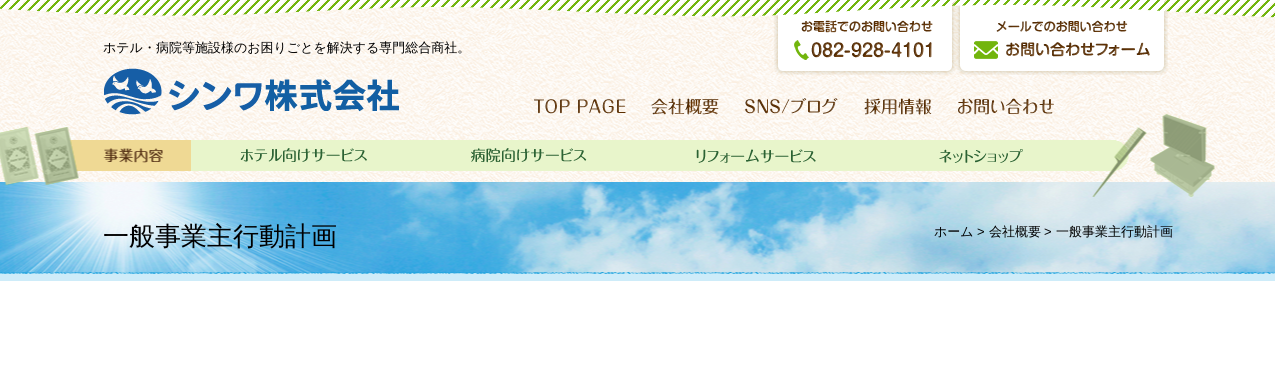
#include <cairo.h>
#include <math.h>
#include <stddef.h>

static cairo_t *ctx;

static void use_color(int r, int g, int b) {
    cairo_set_source_rgb(ctx, r / 255.0, g / 255.0, b / 255.0);
}

static void picture(const char *path, double x, double y, double w, double h) {
    cairo_surface_t *image = cairo_image_surface_create_from_png(path);
    cairo_save(ctx);
    cairo_set_source_surface(ctx, image, x, y);
    cairo_rectangle(ctx, x, y, w, h);
    cairo_fill(ctx);
    cairo_restore(ctx);
    cairo_surface_destroy(image);
}

int main(void) {
    cairo_surface_t *surface = cairo_image_surface_create(CAIRO_FORMAT_RGB24, 1275, 390);
    ctx = cairo_create(surface);
    cairo_font_options_t *options = cairo_font_options_create();
    cairo_font_options_set_hint_metrics(options, CAIRO_HINT_METRICS_OFF);
    cairo_font_options_set_hint_style(options, CAIRO_HINT_STYLE_NONE);
    cairo_set_font_options(ctx, options);
    cairo_set_miter_limit(ctx, 4);
    use_color(255, 255, 255);
    cairo_paint(ctx);
    picture("img1.png", 0, 0, 1275, 281);
    picture("img4.png", 774, 0, 182, 75);
    picture("img5.png", 956, 0, 212, 75);
    picture("img2.png", 0, 0, 1275, 18);
    cairo_select_font_face(ctx, "WenQuanYi Zen Hei Medium", CAIRO_FONT_SLANT_NORMAL, CAIRO_FONT_WEIGHT_NORMAL);
    cairo_set_font_size(ctx, 13);
    use_color(0, 0, 0);
    cairo_move_to(ctx, 103, 52);
    cairo_show_text(ctx, "ホテル・病院等施設様のお困りごとを解決する専門総合商社。");
    picture("img3.png", 104, 68, 295, 47);
    picture("img6.png", 534, 99, 92, 15);
    picture("img7.png", 651, 98, 68, 17);
    picture("img8.png", 745, 98, 93, 16);
    picture("img9.png", 864, 98, 68, 17);
    picture("img10.png", 958, 98, 96, 17);
    picture("img11.png", 191, 140, 225, 31);
    picture("img12.png", 416, 140, 225, 23);
    picture("img13.png", 641, 140, 227, 23);
    picture("img14.png", 868, 140, 225, 23);
    cairo_set_font_size(ctx, 26);
    cairo_move_to(ctx, 103, 245);
    cairo_show_text(ctx, "一般事業主行動計画");
    cairo_set_font_size(ctx, 13);
    cairo_move_to(ctx, 934, 236);
    cairo_show_text(ctx, "ホーム");
    cairo_select_font_face(ctx, "Liberation Sans", CAIRO_FONT_SLANT_NORMAL, CAIRO_FONT_WEIGHT_NORMAL);
    cairo_move_to(ctx, 977, 236);
    cairo_show_text(ctx, ">");
    cairo_select_font_face(ctx, "WenQuanYi Zen Hei Medium", CAIRO_FONT_SLANT_NORMAL, CAIRO_FONT_WEIGHT_NORMAL);
    cairo_move_to(ctx, 989, 236);
    cairo_show_text(ctx, "会社概要");
    cairo_select_font_face(ctx, "Liberation Sans", CAIRO_FONT_SLANT_NORMAL, CAIRO_FONT_WEIGHT_NORMAL);
    cairo_move_to(ctx, 1044, 236);
    cairo_show_text(ctx, ">");
    cairo_select_font_face(ctx, "WenQuanYi Zen Hei Medium", CAIRO_FONT_SLANT_NORMAL, CAIRO_FONT_WEIGHT_NORMAL);
    cairo_move_to(ctx, 1056, 236);
    cairo_show_text(ctx, "一般事業主行動計画");
    cairo_surface_write_to_png(surface, "result.png");
    cairo_font_options_destroy(options);
    cairo_destroy(ctx);
    cairo_surface_destroy(surface);
    return 0;
}
